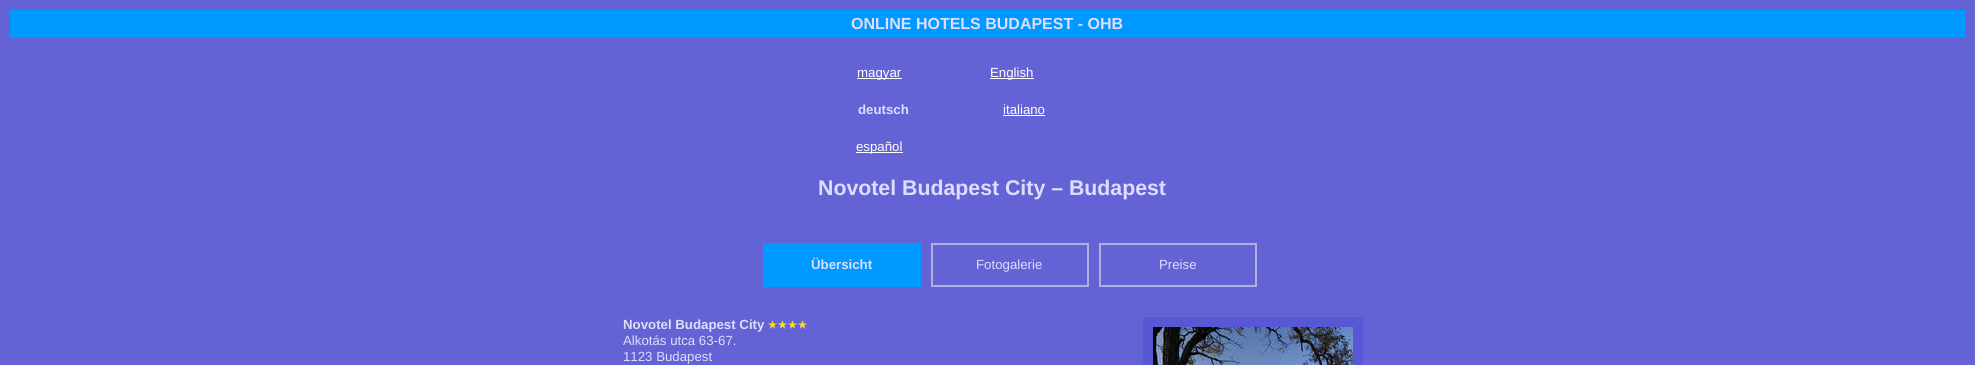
#include <cairo.h>
#include <math.h>
#include <stddef.h>

static cairo_t *ctx;

static void use_color(int r, int g, int b) {
    cairo_set_source_rgb(ctx, r / 255.0, g / 255.0, b / 255.0);
}

static void picture(const char *path, double x, double y, double w, double h) {
    cairo_surface_t *image = cairo_image_surface_create_from_png(path);
    cairo_save(ctx);
    cairo_set_source_surface(ctx, image, x, y);
    cairo_rectangle(ctx, x, y, w, h);
    cairo_fill(ctx);
    cairo_restore(ctx);
    cairo_surface_destroy(image);
}

int main(void) {
    cairo_surface_t *surface = cairo_image_surface_create(CAIRO_FORMAT_RGB24, 1975, 365);
    ctx = cairo_create(surface);
    cairo_font_options_t *options = cairo_font_options_create();
    cairo_font_options_set_hint_metrics(options, CAIRO_HINT_METRICS_OFF);
    cairo_font_options_set_hint_style(options, CAIRO_HINT_STYLE_NONE);
    cairo_set_font_options(ctx, options);
    cairo_set_miter_limit(ctx, 4);
    use_color(99, 99, 214);
    cairo_paint(ctx);
    use_color(0, 153, 255);
    cairo_rectangle(ctx, 10, 10, 1955, 28);
    cairo_fill(ctx);
    cairo_select_font_face(ctx, "Liberation Sans", CAIRO_FONT_SLANT_NORMAL, CAIRO_FONT_WEIGHT_BOLD);
    cairo_set_font_size(ctx, 16);
    use_color(221, 221, 255);
    cairo_move_to(ctx, 851, 29);
    cairo_show_text(ctx, "ONLINE HOTELS BUDAPEST - OHB");
    use_color(255, 255, 255);
    cairo_rectangle(ctx, 857, 78, 45, 1);
    cairo_fill(ctx);
    cairo_select_font_face(ctx, "Liberation Sans", CAIRO_FONT_SLANT_NORMAL, CAIRO_FONT_WEIGHT_NORMAL);
    cairo_set_font_size(ctx, 13.25);
    cairo_move_to(ctx, 857, 77);
    cairo_show_text(ctx, "magyar");
    cairo_rectangle(ctx, 990, 78, 44, 1);
    cairo_fill(ctx);
    cairo_move_to(ctx, 990, 77);
    cairo_show_text(ctx, "English");
    cairo_select_font_face(ctx, "Liberation Sans", CAIRO_FONT_SLANT_NORMAL, CAIRO_FONT_WEIGHT_BOLD);
    use_color(221, 221, 255);
    cairo_move_to(ctx, 858, 114);
    cairo_show_text(ctx, "deutsch");
    cairo_select_font_face(ctx, "Liberation Sans", CAIRO_FONT_SLANT_NORMAL, CAIRO_FONT_WEIGHT_NORMAL);
    use_color(255, 255, 255);
    cairo_move_to(ctx, 1003, 114);
    cairo_show_text(ctx, "italiano");
    cairo_rectangle(ctx, 1003, 115, 42, 1);
    cairo_fill(ctx);
    cairo_rectangle(ctx, 856, 152, 47, 1);
    cairo_fill(ctx);
    cairo_move_to(ctx, 856, 151);
    cairo_show_text(ctx, "español");
    cairo_select_font_face(ctx, "Liberation Sans", CAIRO_FONT_SLANT_NORMAL, CAIRO_FONT_WEIGHT_BOLD);
    cairo_set_font_size(ctx, 21.3);
    use_color(221, 221, 255);
    cairo_move_to(ctx, 818, 195);
    cairo_show_text(ctx, "Novotel Budapest City – Budapest");
    use_color(0, 153, 255);
    cairo_rectangle(ctx, 763, 243, 158, 44);
    cairo_fill(ctx);
    cairo_set_font_size(ctx, 13.25);
    use_color(221, 221, 255);
    cairo_move_to(ctx, 811, 269);
    cairo_show_text(ctx, "Übersicht");
    cairo_rectangle(ctx, 932, 244, 156, 42);
    use_color(176, 176, 224);
    cairo_stroke(ctx);
    cairo_select_font_face(ctx, "Liberation Sans", CAIRO_FONT_SLANT_NORMAL, CAIRO_FONT_WEIGHT_NORMAL);
    use_color(221, 221, 255);
    cairo_move_to(ctx, 976, 269);
    cairo_show_text(ctx, "Fotogalerie");
    cairo_rectangle(ctx, 1100, 244, 156, 42);
    use_color(176, 176, 224);
    cairo_stroke(ctx);
    use_color(221, 221, 255);
    cairo_move_to(ctx, 1159, 269);
    cairo_show_text(ctx, "Preise");
    cairo_select_font_face(ctx, "Liberation Sans", CAIRO_FONT_SLANT_NORMAL, CAIRO_FONT_WEIGHT_BOLD);
    cairo_move_to(ctx, 623, 329);
    cairo_show_text(ctx, "Novotel Budapest City");
    picture("img1.png", 768, 320, 39, 9);
    use_color(88, 88, 214);
    cairo_rectangle(ctx, 1143, 317, 220, 48);
    cairo_fill(ctx);
    picture("img2.png", 1153, 327, 200, 38);
    cairo_select_font_face(ctx, "Liberation Sans", CAIRO_FONT_SLANT_NORMAL, CAIRO_FONT_WEIGHT_NORMAL);
    use_color(221, 221, 255);
    cairo_move_to(ctx, 623, 345);
    cairo_show_text(ctx, "Alkotás utca 63-67.");
    cairo_move_to(ctx, 623, 361);
    cairo_show_text(ctx, "1123 Budapest");
    cairo_surface_write_to_png(surface, "result.png");
    cairo_font_options_destroy(options);
    cairo_destroy(ctx);
    cairo_surface_destroy(surface);
    return 0;
}
